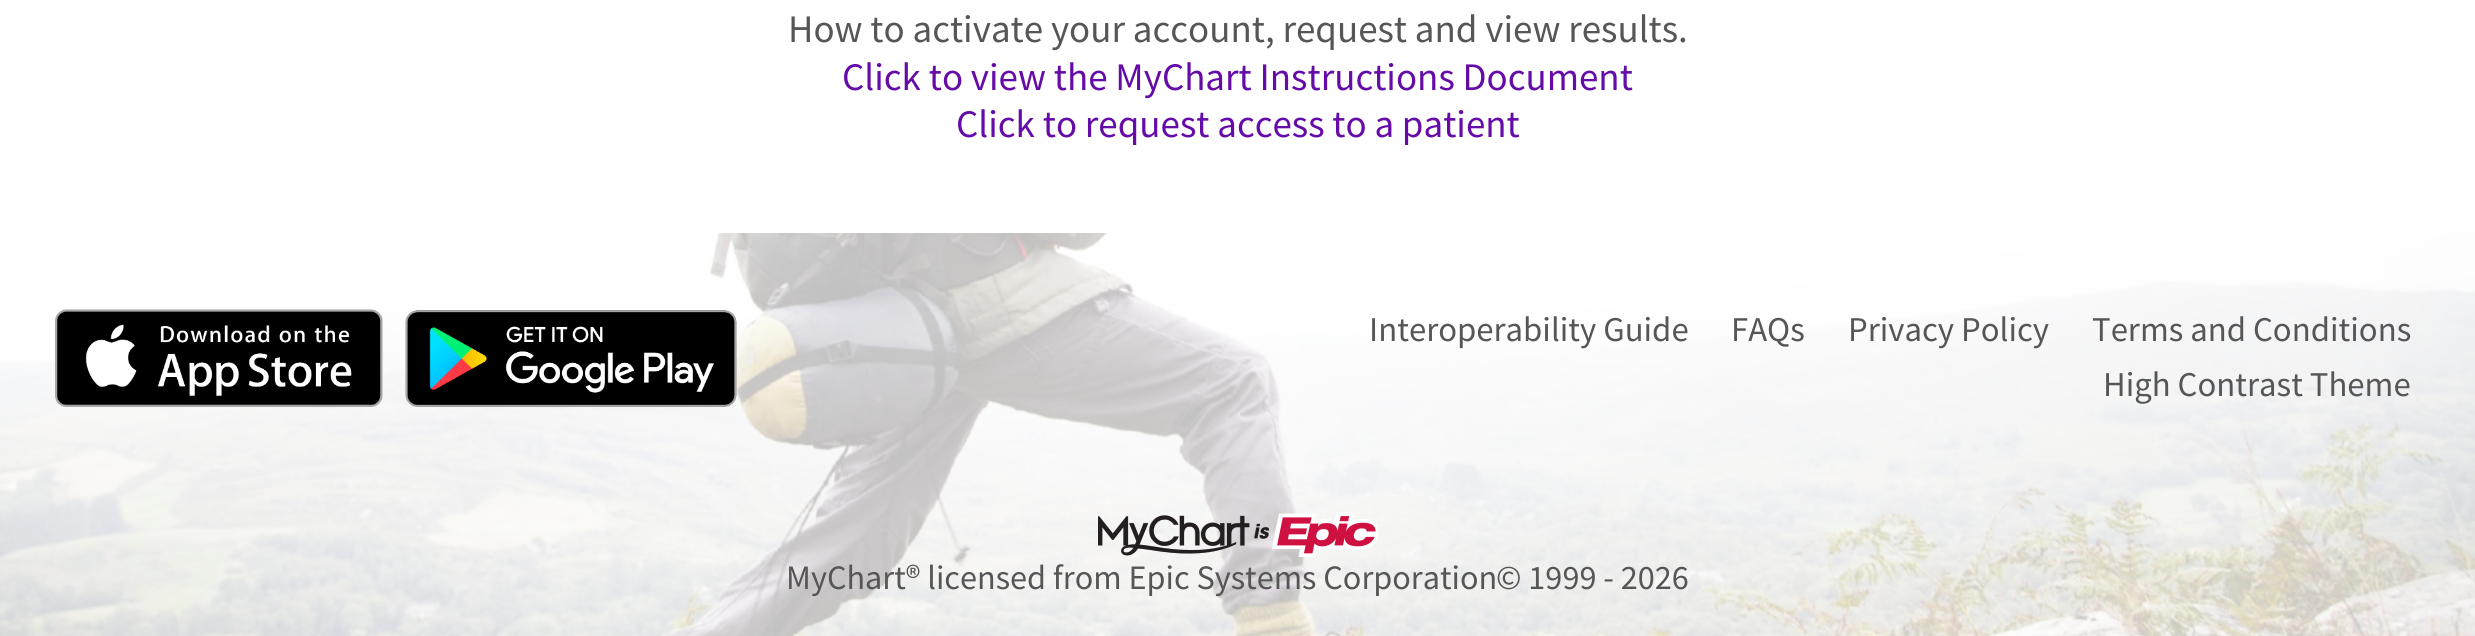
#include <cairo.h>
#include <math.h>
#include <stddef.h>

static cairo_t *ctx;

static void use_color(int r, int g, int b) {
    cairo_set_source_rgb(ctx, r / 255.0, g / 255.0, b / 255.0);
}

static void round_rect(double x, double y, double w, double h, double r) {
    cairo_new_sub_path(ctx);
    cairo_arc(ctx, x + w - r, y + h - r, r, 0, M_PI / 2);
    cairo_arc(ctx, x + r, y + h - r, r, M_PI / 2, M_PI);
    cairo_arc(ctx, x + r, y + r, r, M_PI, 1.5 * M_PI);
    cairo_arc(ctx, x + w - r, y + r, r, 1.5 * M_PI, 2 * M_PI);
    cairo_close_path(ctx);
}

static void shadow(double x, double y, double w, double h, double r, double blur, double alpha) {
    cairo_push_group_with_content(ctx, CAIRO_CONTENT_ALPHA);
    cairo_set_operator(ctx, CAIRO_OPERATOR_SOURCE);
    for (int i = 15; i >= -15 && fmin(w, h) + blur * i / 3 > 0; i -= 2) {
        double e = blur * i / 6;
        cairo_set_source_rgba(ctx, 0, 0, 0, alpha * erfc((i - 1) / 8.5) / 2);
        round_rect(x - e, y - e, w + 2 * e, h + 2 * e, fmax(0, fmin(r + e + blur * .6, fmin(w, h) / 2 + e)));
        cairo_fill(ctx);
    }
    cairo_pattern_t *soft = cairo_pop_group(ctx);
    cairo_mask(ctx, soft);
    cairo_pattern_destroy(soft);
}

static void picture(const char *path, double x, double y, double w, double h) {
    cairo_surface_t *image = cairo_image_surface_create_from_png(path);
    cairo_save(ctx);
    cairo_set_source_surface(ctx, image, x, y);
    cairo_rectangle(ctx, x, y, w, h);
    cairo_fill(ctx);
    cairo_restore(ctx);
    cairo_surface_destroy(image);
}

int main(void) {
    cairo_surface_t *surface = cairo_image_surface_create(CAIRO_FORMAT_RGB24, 2475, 636);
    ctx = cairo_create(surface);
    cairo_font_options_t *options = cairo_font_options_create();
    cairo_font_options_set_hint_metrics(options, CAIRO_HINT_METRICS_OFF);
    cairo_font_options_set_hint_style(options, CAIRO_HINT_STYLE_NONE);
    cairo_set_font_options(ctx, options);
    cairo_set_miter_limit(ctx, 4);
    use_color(255, 255, 255);
    cairo_paint(ctx);
    picture("img1.png", 0, 233, 2475, 359);
    cairo_save(ctx);
    cairo_set_fill_rule(ctx, CAIRO_FILL_RULE_EVEN_ODD);
    cairo_new_path(ctx);
    cairo_move_to(ctx, 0, 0);
    cairo_line_to(ctx, 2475, 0);
    cairo_line_to(ctx, 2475, 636);
    cairo_line_to(ctx, 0, 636);
    cairo_close_path(ctx);
    cairo_move_to(ctx, 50, -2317);
    cairo_line_to(ctx, 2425, -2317);
    cairo_curve_to(ctx, 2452.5, -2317, 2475, -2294.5, 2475, -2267);
    cairo_line_to(ctx, 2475, 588);
    cairo_curve_to(ctx, 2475, 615.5, 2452.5, 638, 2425, 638);
    cairo_line_to(ctx, 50, 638);
    cairo_curve_to(ctx, 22.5, 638, 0, 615.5, 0, 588);
    cairo_line_to(ctx, 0, -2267);
    cairo_curve_to(ctx, 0, -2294.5, 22.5, -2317, 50, -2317);
    cairo_close_path(ctx);
    cairo_clip(ctx);
    use_color(0, 0, 0);
    shadow(0, -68, 2475, 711, 50, 6, 0.2);
    cairo_restore(ctx);
    cairo_select_font_face(ctx, "Source Sans Pro", CAIRO_FONT_SLANT_NORMAL, CAIRO_FONT_WEIGHT_NORMAL);
    cairo_set_font_size(ctx, 39);
    use_color(86, 86, 86);
    cairo_move_to(ctx, 788, 42);
    cairo_show_text(ctx, "How to activate your account, request and view results.");
    use_color(101, 11, 167);
    cairo_move_to(ctx, 842, 90);
    cairo_show_text(ctx, "Click to view the MyChart Instructions Document");
    cairo_move_to(ctx, 956, 137);
    cairo_show_text(ctx, "Click to request access to a patient");
    cairo_set_source_rgba(ctx, 1, 1, 1, 0.75);
    cairo_rectangle(ctx, 0, 233, 2475, 215);
    cairo_fill(ctx);
    picture("img2.png", 55, 309, 328, 98);
    picture("img3.png", 405, 310, 332, 97);
    cairo_set_font_size(ctx, 34.75);
    use_color(86, 86, 86);
    cairo_move_to(ctx, 1369, 341);
    cairo_show_text(ctx, "Interoperability Guide");
    cairo_move_to(ctx, 1731, 341);
    cairo_show_text(ctx, "FAQs");
    cairo_move_to(ctx, 1848, 341);
    cairo_show_text(ctx, "Privacy Policy");
    cairo_move_to(ctx, 2092, 341);
    cairo_show_text(ctx, "Terms and Conditions");
    cairo_move_to(ctx, 2103, 396);
    cairo_show_text(ctx, "High Contrast Theme");
    picture("img5.png", 0, 592, 2475, 44);
    cairo_set_source_rgba(ctx, 1, 1, 1, 0.75);
    cairo_rectangle(ctx, 0, 448, 2475, 188);
    cairo_fill(ctx);
    picture("img4.png", 1098, 513, 280, 44);
    cairo_set_font_size(ctx, 34.25);
    use_color(86, 86, 86);
    cairo_move_to(ctx, 786, 589);
    cairo_show_text(ctx, "MyChart® licensed from Epic Systems Corporation");
    cairo_move_to(ctx, 1496, 589);
    cairo_show_text(ctx, "© 1999 - 2026");
    cairo_surface_write_to_png(surface, "result.png");
    cairo_font_options_destroy(options);
    cairo_destroy(ctx);
    cairo_surface_destroy(surface);
    return 0;
}
